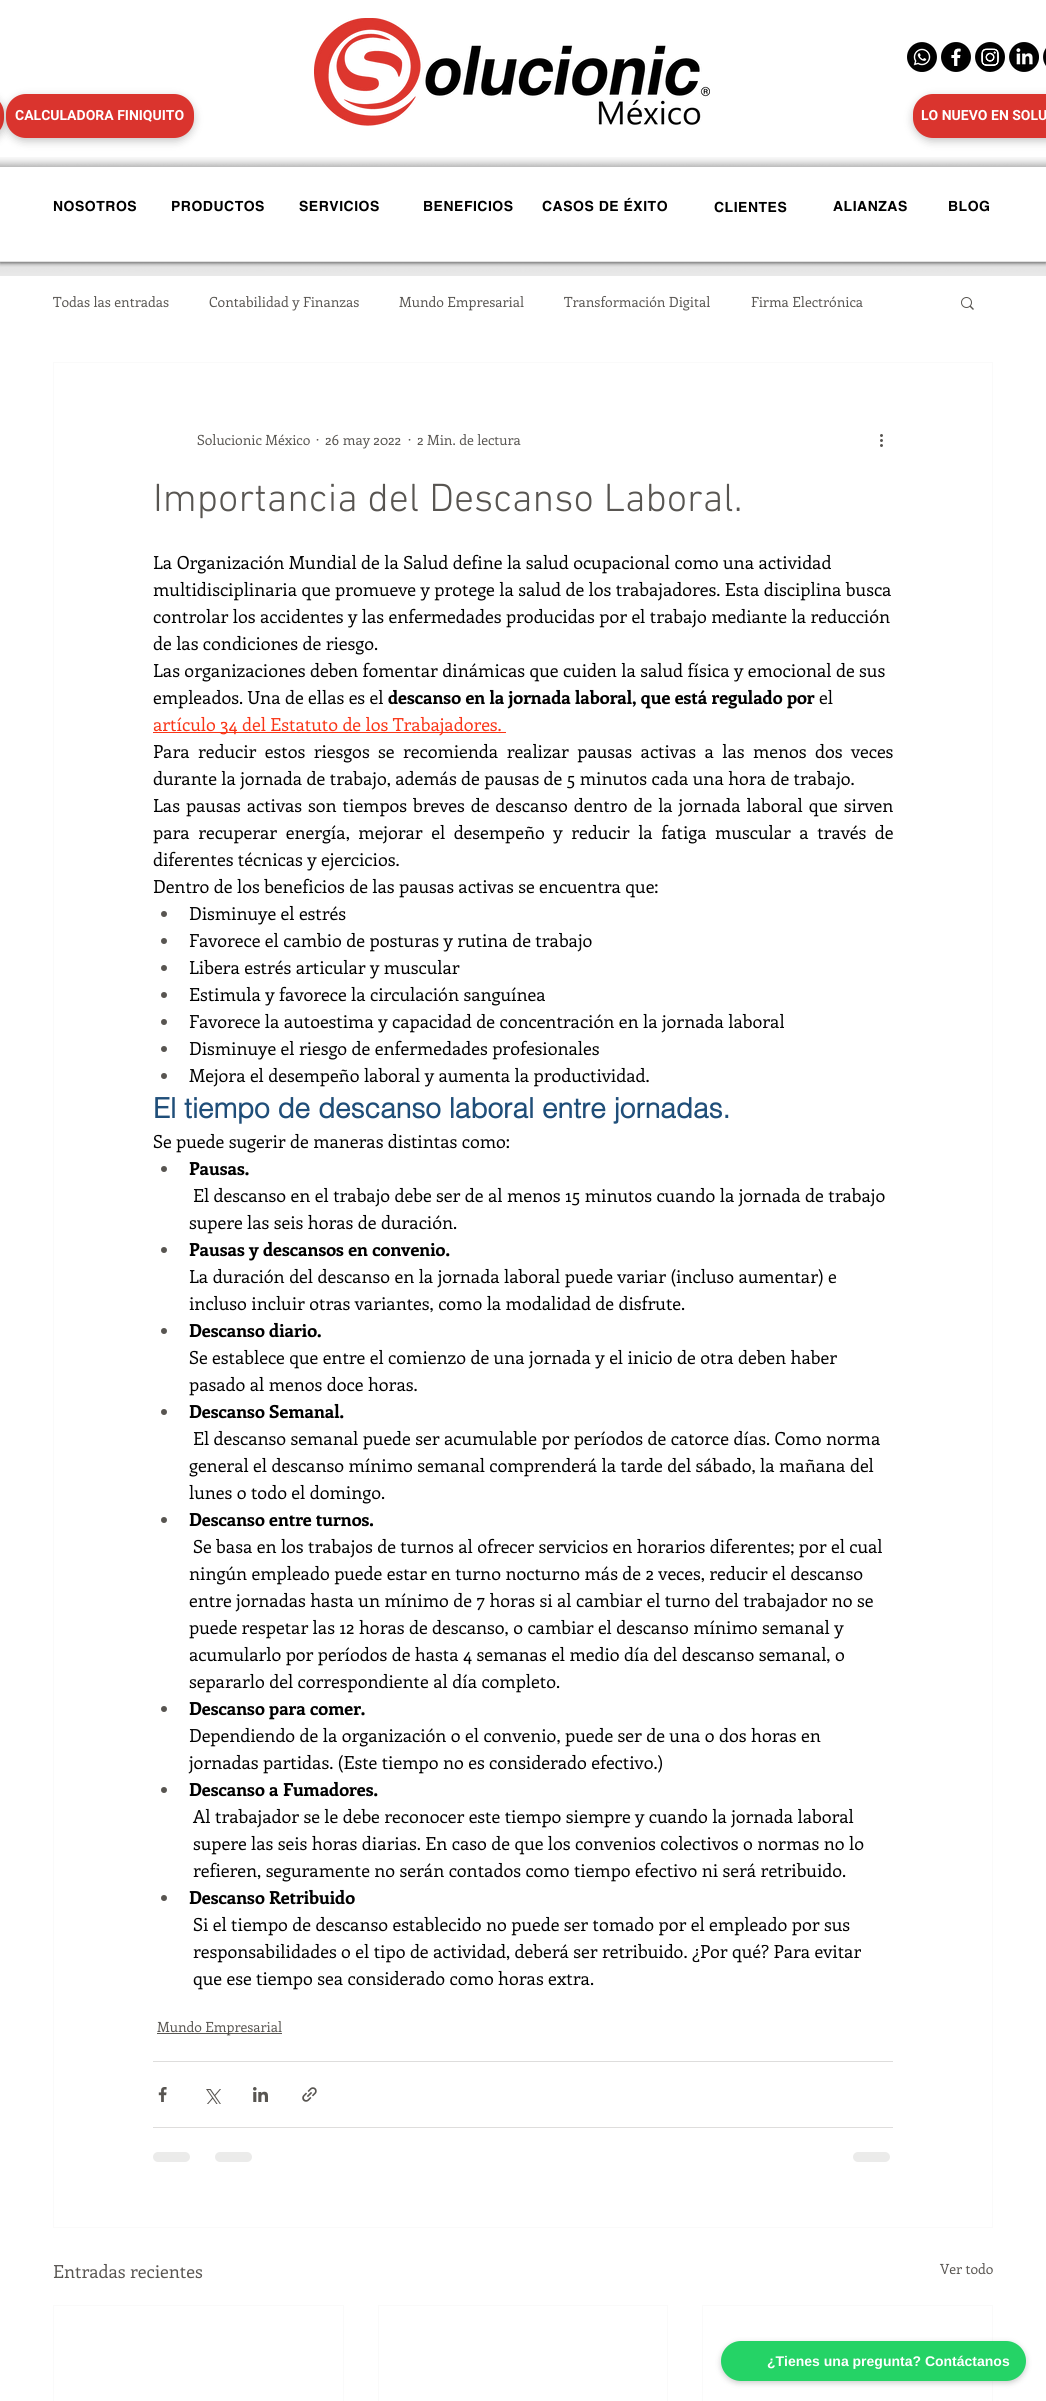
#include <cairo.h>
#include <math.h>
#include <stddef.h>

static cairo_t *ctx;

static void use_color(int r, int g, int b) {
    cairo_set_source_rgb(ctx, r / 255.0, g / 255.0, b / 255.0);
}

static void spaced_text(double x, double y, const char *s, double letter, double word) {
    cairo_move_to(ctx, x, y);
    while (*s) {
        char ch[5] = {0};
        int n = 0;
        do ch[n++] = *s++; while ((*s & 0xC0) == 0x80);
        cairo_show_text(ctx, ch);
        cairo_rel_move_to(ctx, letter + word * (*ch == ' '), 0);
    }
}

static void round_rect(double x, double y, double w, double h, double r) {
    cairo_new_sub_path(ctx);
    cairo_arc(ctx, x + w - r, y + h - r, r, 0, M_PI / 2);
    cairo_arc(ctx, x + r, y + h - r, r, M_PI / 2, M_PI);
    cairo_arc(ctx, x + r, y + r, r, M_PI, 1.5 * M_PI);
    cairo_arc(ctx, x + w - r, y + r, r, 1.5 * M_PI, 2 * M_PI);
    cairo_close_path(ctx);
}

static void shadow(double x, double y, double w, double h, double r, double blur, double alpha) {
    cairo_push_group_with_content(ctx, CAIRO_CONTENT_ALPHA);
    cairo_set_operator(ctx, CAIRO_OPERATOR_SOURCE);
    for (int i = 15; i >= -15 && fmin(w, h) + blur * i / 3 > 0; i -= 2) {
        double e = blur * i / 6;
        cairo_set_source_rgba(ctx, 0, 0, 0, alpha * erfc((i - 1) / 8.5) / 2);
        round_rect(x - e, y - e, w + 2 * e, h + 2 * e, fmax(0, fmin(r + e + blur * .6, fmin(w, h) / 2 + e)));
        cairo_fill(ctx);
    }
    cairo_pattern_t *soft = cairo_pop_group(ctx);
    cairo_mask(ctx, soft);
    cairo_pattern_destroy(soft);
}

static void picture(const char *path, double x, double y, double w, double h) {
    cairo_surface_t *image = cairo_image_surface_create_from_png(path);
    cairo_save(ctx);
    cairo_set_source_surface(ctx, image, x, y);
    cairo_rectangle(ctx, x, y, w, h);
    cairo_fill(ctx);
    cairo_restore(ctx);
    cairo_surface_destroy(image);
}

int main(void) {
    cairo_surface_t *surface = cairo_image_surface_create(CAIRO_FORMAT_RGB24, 1046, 2401);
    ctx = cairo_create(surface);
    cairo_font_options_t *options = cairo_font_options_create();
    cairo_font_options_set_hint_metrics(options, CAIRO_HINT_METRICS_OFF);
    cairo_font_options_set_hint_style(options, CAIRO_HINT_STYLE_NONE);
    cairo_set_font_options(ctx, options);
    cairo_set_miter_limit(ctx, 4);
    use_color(255, 255, 255);
    cairo_paint(ctx);
    cairo_save(ctx);
    cairo_rectangle(ctx, 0, 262, 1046, 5);
    cairo_clip(ctx);
    use_color(0, 0, 0);
    shadow(0, 1, 1046, 262, 0, 2, 0.6);
    cairo_restore(ctx);
    picture("img1.png", 314, 18, 396, 108);
    picture("img2.png", 907, 42, 30, 30);
    picture("img3.png", 941, 42, 30, 30);
    picture("img4.png", 975, 42, 30, 30);
    picture("img5.png", 1009, 42, 30, 30);
    picture("img6.png", 1043, 48, 3, 18);
    use_color(0, 0, 0);
    shadow(-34, 97, 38, 44, 20, 4.5, 0.23);
    use_color(218, 52, 46);
    round_rect(-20, 94, 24, 44, 20);
    cairo_fill(ctx);
    use_color(0, 0, 0);
    shadow(6, 97, 188, 44, 20, 4.5, 0.23);
    use_color(218, 52, 46);
    round_rect(6, 94, 188, 44, 20);
    cairo_fill(ctx);
    cairo_select_font_face(ctx, "Roboto", CAIRO_FONT_SLANT_NORMAL, CAIRO_FONT_WEIGHT_BOLD);
    cairo_set_font_size(ctx, 14);
    use_color(255, 255, 255);
    cairo_move_to(ctx, 15, 120);
    cairo_show_text(ctx, "CALCULADORA FINIQUITO");
    use_color(0, 0, 0);
    shadow(913, 97, 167, 44, 20, 4.5, 0.23);
    use_color(218, 52, 46);
    round_rect(913, 94, 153, 44, 20);
    cairo_fill(ctx);
    use_color(255, 255, 255);
    cairo_move_to(ctx, 921, 120);
    cairo_show_text(ctx, "LO NUEVO EN SOLU");
    picture("img7.png", 0, 157, 1046, 119);
    cairo_rectangle(ctx, 0, 167, 1046, 94);
    cairo_fill(ctx);
    cairo_select_font_face(ctx, "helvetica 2", CAIRO_FONT_SLANT_NORMAL, CAIRO_FONT_WEIGHT_BOLD);
    use_color(0, 0, 0);
    spaced_text(53, 211, "NOSOTROS", 0.5, 0);
    spaced_text(171, 211, "PRODUCTOS", 0.5, 0);
    spaced_text(299, 211, "SERVICIOS", 0.5, 0);
    spaced_text(423, 211, "BENEFICIOS", 0.5, 0);
    spaced_text(542, 211, "CASOS DE ÉXITO", 0.5, 0);
    spaced_text(714, 212, "CLIENTES", 0.5, 0);
    spaced_text(833, 211, "ALIANZAS", 0.5, 0);
    spaced_text(948, 211, "BLOG", 0.5, 0);
    cairo_select_font_face(ctx, "Enriqueta", CAIRO_FONT_SLANT_NORMAL, CAIRO_FONT_WEIGHT_NORMAL);
    use_color(88, 85, 81);
    cairo_move_to(ctx, 53, 307);
    cairo_show_text(ctx, "Todas las entradas");
    cairo_move_to(ctx, 209, 307);
    cairo_show_text(ctx, "Contabilidad y Finanzas");
    cairo_move_to(ctx, 399, 307);
    cairo_show_text(ctx, "Mundo Empresarial");
    cairo_move_to(ctx, 564, 307);
    cairo_show_text(ctx, "Transformación Digital");
    cairo_move_to(ctx, 751, 307);
    cairo_show_text(ctx, "Firma Electrónica");
    picture("img8.png", 961, 297, 13, 13);
    cairo_rectangle(ctx, 53.5, 362.5, 939, 1865);
    use_color(250, 250, 250);
    cairo_set_line_width(ctx, 1);
    cairo_stroke(ctx);
    use_color(88, 85, 81);
    cairo_move_to(ctx, 197, 445);
    cairo_show_text(ctx, "Solucionic México");
    cairo_move_to(ctx, 316, 445);
    cairo_show_text(ctx, "·");
    cairo_move_to(ctx, 325, 445);
    cairo_show_text(ctx, "26 may 2022");
    cairo_move_to(ctx, 408, 445);
    cairo_show_text(ctx, "·");
    cairo_move_to(ctx, 417, 445);
    cairo_show_text(ctx, "2 Min. de lectura");
    picture("img9.png", 880, 434, 3, 13);
    cairo_select_font_face(ctx, "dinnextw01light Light", CAIRO_FONT_SLANT_NORMAL, CAIRO_FONT_WEIGHT_NORMAL);
    cairo_set_font_size(ctx, 40);
    cairo_move_to(ctx, 153, 511);
    cairo_show_text(ctx, "Importancia del Descanso Laboral.");
    cairo_select_font_face(ctx, "Enriqueta", CAIRO_FONT_SLANT_NORMAL, CAIRO_FONT_WEIGHT_NORMAL);
    cairo_set_font_size(ctx, 18);
    use_color(0, 0, 0);
    cairo_move_to(ctx, 153, 569);
    cairo_show_text(ctx, "La Organización Mundial de la Salud define la salud ocupacional como una actividad");
    cairo_move_to(ctx, 153, 596);
    cairo_show_text(ctx, "multidisciplinaria que promueve y protege la salud de los trabajadores. Esta disciplina busca");
    cairo_move_to(ctx, 153, 623);
    cairo_show_text(ctx, "controlar los accidentes y las enfermedades producidas por el trabajo mediante la reducción");
    cairo_move_to(ctx, 153, 650);
    cairo_show_text(ctx, "de las condiciones de riesgo.");
    cairo_move_to(ctx, 153, 677);
    cairo_show_text(ctx, "Las organizaciones deben fomentar dinámicas que cuiden la salud física y emocional de sus");
    cairo_move_to(ctx, 153, 704);
    cairo_show_text(ctx, "empleados. Una de ellas es el");
    cairo_select_font_face(ctx, "Enriqueta", CAIRO_FONT_SLANT_NORMAL, CAIRO_FONT_WEIGHT_BOLD);
    cairo_move_to(ctx, 388, 704);
    cairo_show_text(ctx, "descanso en la jornada laboral, que está regulado por");
    cairo_select_font_face(ctx, "Enriqueta", CAIRO_FONT_SLANT_NORMAL, CAIRO_FONT_WEIGHT_NORMAL);
    cairo_move_to(ctx, 819, 704);
    cairo_show_text(ctx, "el");
    use_color(249, 52, 22);
    cairo_rectangle(ctx, 153, 732, 353, 1);
    cairo_fill(ctx);
    cairo_move_to(ctx, 153, 731);
    cairo_show_text(ctx, "artículo 34 del Estatuto de los Trabajadores.");
    use_color(0, 0, 0);
    spaced_text(153, 758, "Para reducir estos riesgos se recomienda realizar pausas activas a las menos dos veces", 0, 4);
    cairo_move_to(ctx, 153, 785);
    cairo_show_text(ctx, "durante la jornada de trabajo, además de pausas de 5 minutos cada una hora de trabajo.");
    spaced_text(153, 812, "Las pausas activas son tiempos breves de descanso dentro de la jornada laboral que sirven", 0, 1.5);
    spaced_text(153, 839, "para recuperar energía, mejorar el desempeño y reducir la fatiga muscular a través de", 0, 4.1);
    cairo_move_to(ctx, 153, 866);
    cairo_show_text(ctx, "diferentes técnicas y ejercicios.");
    cairo_move_to(ctx, 153, 893);
    cairo_show_text(ctx, "Dentro de los beneficios de las pausas activas se encuentra que:");
    use_color(88, 85, 81);
    cairo_new_path(ctx);
    cairo_arc(ctx, 164, 914, 3, 0, 2 * M_PI);
    cairo_fill(ctx);
    use_color(0, 0, 0);
    cairo_move_to(ctx, 189, 920);
    cairo_show_text(ctx, "Disminuye el estrés");
    use_color(88, 85, 81);
    cairo_new_path(ctx);
    cairo_arc(ctx, 164, 941, 3, 0, 2 * M_PI);
    cairo_fill(ctx);
    use_color(0, 0, 0);
    cairo_move_to(ctx, 189, 947);
    cairo_show_text(ctx, "Favorece el cambio de posturas y rutina de trabajo");
    use_color(88, 85, 81);
    cairo_new_path(ctx);
    cairo_arc(ctx, 164, 968, 3, 0, 2 * M_PI);
    cairo_fill(ctx);
    use_color(0, 0, 0);
    cairo_move_to(ctx, 189, 974);
    cairo_show_text(ctx, "Libera estrés articular y muscular");
    use_color(88, 85, 81);
    cairo_new_path(ctx);
    cairo_arc(ctx, 164, 995, 3, 0, 2 * M_PI);
    cairo_fill(ctx);
    use_color(0, 0, 0);
    cairo_move_to(ctx, 189, 1001);
    cairo_show_text(ctx, "Estimula y favorece la circulación sanguínea");
    use_color(88, 85, 81);
    cairo_new_path(ctx);
    cairo_arc(ctx, 164, 1022, 3, 0, 2 * M_PI);
    cairo_fill(ctx);
    use_color(0, 0, 0);
    cairo_move_to(ctx, 189, 1028);
    cairo_show_text(ctx, "Favorece la autoestima y capacidad de concentración en la jornada laboral");
    use_color(88, 85, 81);
    cairo_new_path(ctx);
    cairo_arc(ctx, 164, 1049, 3, 0, 2 * M_PI);
    cairo_fill(ctx);
    use_color(0, 0, 0);
    cairo_move_to(ctx, 189, 1055);
    cairo_show_text(ctx, "Disminuye el riesgo de enfermedades profesionales");
    use_color(88, 85, 81);
    cairo_new_path(ctx);
    cairo_arc(ctx, 164, 1076, 3, 0, 2 * M_PI);
    cairo_fill(ctx);
    use_color(0, 0, 0);
    cairo_move_to(ctx, 189, 1082);
    cairo_show_text(ctx, "Mejora el desempeño laboral y aumenta la productividad.");
    cairo_select_font_face(ctx, "helvetica", CAIRO_FONT_SLANT_NORMAL, CAIRO_FONT_WEIGHT_BOLD);
    cairo_set_font_size(ctx, 28);
    use_color(31, 78, 121);
    cairo_move_to(ctx, 153, 1118);
    cairo_show_text(ctx, "El tiempo de descanso laboral entre jornadas.");
    cairo_select_font_face(ctx, "Enriqueta", CAIRO_FONT_SLANT_NORMAL, CAIRO_FONT_WEIGHT_NORMAL);
    cairo_set_font_size(ctx, 18);
    use_color(0, 0, 0);
    cairo_move_to(ctx, 153, 1148);
    cairo_show_text(ctx, "Se puede sugerir de maneras distintas como:");
    use_color(88, 85, 81);
    cairo_new_path(ctx);
    cairo_arc(ctx, 164, 1169, 3, 0, 2 * M_PI);
    cairo_fill(ctx);
    cairo_select_font_face(ctx, "Enriqueta", CAIRO_FONT_SLANT_NORMAL, CAIRO_FONT_WEIGHT_BOLD);
    use_color(0, 0, 0);
    cairo_move_to(ctx, 189, 1175);
    cairo_show_text(ctx, "Pausas.");
    cairo_select_font_face(ctx, "Enriqueta", CAIRO_FONT_SLANT_NORMAL, CAIRO_FONT_WEIGHT_NORMAL);
    cairo_move_to(ctx, 193, 1202);
    cairo_show_text(ctx, "El descanso en el trabajo debe ser de al menos 15 minutos cuando la jornada de trabajo");
    cairo_move_to(ctx, 189, 1229);
    cairo_show_text(ctx, "supere las seis horas de duración.");
    use_color(88, 85, 81);
    cairo_new_path(ctx);
    cairo_arc(ctx, 164, 1250, 3, 0, 2 * M_PI);
    cairo_fill(ctx);
    cairo_select_font_face(ctx, "Enriqueta", CAIRO_FONT_SLANT_NORMAL, CAIRO_FONT_WEIGHT_BOLD);
    use_color(0, 0, 0);
    cairo_move_to(ctx, 189, 1256);
    cairo_show_text(ctx, "Pausas y descansos en convenio.");
    cairo_select_font_face(ctx, "Enriqueta", CAIRO_FONT_SLANT_NORMAL, CAIRO_FONT_WEIGHT_NORMAL);
    cairo_move_to(ctx, 189, 1283);
    cairo_show_text(ctx, "La duración del descanso en la jornada laboral puede variar (incluso aumentar) e");
    cairo_move_to(ctx, 189, 1310);
    cairo_show_text(ctx, "incluso incluir otras variantes, como la modalidad de disfrute.");
    use_color(88, 85, 81);
    cairo_new_path(ctx);
    cairo_arc(ctx, 164, 1331, 3, 0, 2 * M_PI);
    cairo_fill(ctx);
    cairo_select_font_face(ctx, "Enriqueta", CAIRO_FONT_SLANT_NORMAL, CAIRO_FONT_WEIGHT_BOLD);
    use_color(0, 0, 0);
    cairo_move_to(ctx, 189, 1337);
    cairo_show_text(ctx, "Descanso diario.");
    cairo_select_font_face(ctx, "Enriqueta", CAIRO_FONT_SLANT_NORMAL, CAIRO_FONT_WEIGHT_NORMAL);
    cairo_move_to(ctx, 189, 1364);
    cairo_show_text(ctx, "Se establece que entre el comienzo de una jornada y el inicio de otra deben haber");
    cairo_move_to(ctx, 189, 1391);
    cairo_show_text(ctx, "pasado al menos doce horas.");
    use_color(88, 85, 81);
    cairo_new_path(ctx);
    cairo_arc(ctx, 164, 1412, 3, 0, 2 * M_PI);
    cairo_fill(ctx);
    cairo_select_font_face(ctx, "Enriqueta", CAIRO_FONT_SLANT_NORMAL, CAIRO_FONT_WEIGHT_BOLD);
    use_color(0, 0, 0);
    cairo_move_to(ctx, 189, 1418);
    cairo_show_text(ctx, "Descanso Semanal.");
    cairo_select_font_face(ctx, "Enriqueta", CAIRO_FONT_SLANT_NORMAL, CAIRO_FONT_WEIGHT_NORMAL);
    cairo_move_to(ctx, 193, 1445);
    cairo_show_text(ctx, "El descanso semanal puede ser acumulable por períodos de catorce días. Como norma");
    cairo_move_to(ctx, 189, 1472);
    cairo_show_text(ctx, "general el descanso mínimo semanal comprenderá la tarde del sábado, la mañana del");
    cairo_move_to(ctx, 189, 1499);
    cairo_show_text(ctx, "lunes o todo el domingo.");
    use_color(88, 85, 81);
    cairo_new_path(ctx);
    cairo_arc(ctx, 164, 1520, 3, 0, 2 * M_PI);
    cairo_fill(ctx);
    cairo_select_font_face(ctx, "Enriqueta", CAIRO_FONT_SLANT_NORMAL, CAIRO_FONT_WEIGHT_BOLD);
    use_color(0, 0, 0);
    cairo_move_to(ctx, 189, 1526);
    cairo_show_text(ctx, "Descanso entre turnos.");
    cairo_select_font_face(ctx, "Enriqueta", CAIRO_FONT_SLANT_NORMAL, CAIRO_FONT_WEIGHT_NORMAL);
    cairo_move_to(ctx, 193, 1553);
    cairo_show_text(ctx, "Se basa en los trabajos de turnos al ofrecer servicios en horarios diferentes; por el cual");
    cairo_move_to(ctx, 189, 1580);
    cairo_show_text(ctx, "ningún empleado puede estar en turno nocturno más de 2 veces, reducir el descanso");
    cairo_move_to(ctx, 189, 1607);
    cairo_show_text(ctx, "entre jornadas hasta un mínimo de 7 horas si al cambiar el turno del trabajador no se");
    cairo_move_to(ctx, 189, 1634);
    cairo_show_text(ctx, "puede respetar las 12 horas de descanso, o cambiar el descanso mínimo semanal y");
    cairo_move_to(ctx, 189, 1661);
    cairo_show_text(ctx, "acumularlo por períodos de hasta 4 semanas el medio día del descanso semanal, o");
    cairo_move_to(ctx, 189, 1688);
    cairo_show_text(ctx, "separarlo del correspondiente al día completo.");
    use_color(88, 85, 81);
    cairo_new_path(ctx);
    cairo_arc(ctx, 164, 1709, 3, 0, 2 * M_PI);
    cairo_fill(ctx);
    cairo_select_font_face(ctx, "Enriqueta", CAIRO_FONT_SLANT_NORMAL, CAIRO_FONT_WEIGHT_BOLD);
    use_color(0, 0, 0);
    cairo_move_to(ctx, 189, 1715);
    cairo_show_text(ctx, "Descanso para comer.");
    cairo_select_font_face(ctx, "Enriqueta", CAIRO_FONT_SLANT_NORMAL, CAIRO_FONT_WEIGHT_NORMAL);
    cairo_move_to(ctx, 189, 1742);
    cairo_show_text(ctx, "Dependiendo de la organización o el convenio, puede ser de una o dos horas en");
    cairo_move_to(ctx, 189, 1769);
    cairo_show_text(ctx, "jornadas partidas. (Este tiempo no es considerado efectivo.)");
    use_color(88, 85, 81);
    cairo_new_path(ctx);
    cairo_arc(ctx, 164, 1790, 3, 0, 2 * M_PI);
    cairo_fill(ctx);
    cairo_select_font_face(ctx, "Enriqueta", CAIRO_FONT_SLANT_NORMAL, CAIRO_FONT_WEIGHT_BOLD);
    use_color(0, 0, 0);
    cairo_move_to(ctx, 189, 1796);
    cairo_show_text(ctx, "Descanso a Fumadores.");
    cairo_select_font_face(ctx, "Enriqueta", CAIRO_FONT_SLANT_NORMAL, CAIRO_FONT_WEIGHT_NORMAL);
    cairo_move_to(ctx, 193, 1823);
    cairo_show_text(ctx, "Al trabajador se le debe reconocer este tiempo siempre y cuando la jornada laboral");
    cairo_move_to(ctx, 193, 1850);
    cairo_show_text(ctx, "supere las seis horas diarias. En caso de que los convenios colectivos o normas no lo");
    cairo_move_to(ctx, 193, 1877);
    cairo_show_text(ctx, "refieren, seguramente no serán contados como tiempo efectivo ni será retribuido.");
    use_color(88, 85, 81);
    cairo_new_path(ctx);
    cairo_arc(ctx, 164, 1898, 3, 0, 2 * M_PI);
    cairo_fill(ctx);
    cairo_select_font_face(ctx, "Enriqueta", CAIRO_FONT_SLANT_NORMAL, CAIRO_FONT_WEIGHT_BOLD);
    use_color(0, 0, 0);
    cairo_move_to(ctx, 189, 1904);
    cairo_show_text(ctx, "Descanso Retribuido");
    cairo_select_font_face(ctx, "Enriqueta", CAIRO_FONT_SLANT_NORMAL, CAIRO_FONT_WEIGHT_NORMAL);
    cairo_move_to(ctx, 193, 1931);
    cairo_show_text(ctx, "Si el tiempo de descanso establecido no puede ser tomado por el empleado por sus");
    cairo_move_to(ctx, 193, 1958);
    cairo_show_text(ctx, "responsabilidades o el tipo de actividad, deberá ser retribuido. ¿Por qué? Para evitar");
    cairo_move_to(ctx, 193, 1985);
    cairo_show_text(ctx, "que ese tiempo sea considerado como horas extra.");
    use_color(88, 85, 81);
    cairo_rectangle(ctx, 157, 2033, 125, 1);
    cairo_fill(ctx);
    cairo_set_font_size(ctx, 14);
    cairo_move_to(ctx, 157, 2032);
    cairo_show_text(ctx, "Mundo Empresarial");
    use_color(222, 221, 220);
    cairo_rectangle(ctx, 153, 2061, 740, 1);
    cairo_fill(ctx);
    picture("img10.png", 158, 2087, 9, 15);
    picture("img11.png", 206, 2089, 15, 15);
    picture("img12.png", 253, 2087, 15, 15);
    picture("img13.png", 302, 2087, 15, 15);
    cairo_rectangle(ctx, 153, 2127, 740, 1);
    cairo_fill(ctx);
    use_color(235, 235, 234);
    round_rect(153, 2152, 37, 10, 5);
    cairo_fill(ctx);
    round_rect(215, 2152, 37, 10, 5);
    cairo_fill(ctx);
    round_rect(853, 2152, 37, 10, 5);
    cairo_fill(ctx);
    cairo_set_font_size(ctx, 18);
    use_color(88, 85, 81);
    cairo_move_to(ctx, 53, 2278);
    cairo_show_text(ctx, "Entradas recientes");
    cairo_set_font_size(ctx, 14);
    cairo_move_to(ctx, 940, 2274);
    cairo_show_text(ctx, "Ver todo");
    cairo_rectangle(ctx, 53.5, 2305.5, 290, 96);
    use_color(250, 250, 250);
    cairo_stroke(ctx);
    cairo_rectangle(ctx, 378.5, 2305.5, 289, 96);
    cairo_stroke(ctx);
    cairo_rectangle(ctx, 702.5, 2305.5, 290, 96);
    cairo_stroke(ctx);
    use_color(0, 0, 0);
    shadow(721, 2343, 305, 40, 20, 3, 0.2);
    use_color(37, 211, 102);
    round_rect(721, 2341, 305, 40, 20);
    cairo_fill(ctx);
    cairo_select_font_face(ctx, "Liberation Sans", CAIRO_FONT_SLANT_NORMAL, CAIRO_FONT_WEIGHT_BOLD);
    use_color(255, 255, 255);
    cairo_move_to(ctx, 767, 2366);
    cairo_show_text(ctx, "¿Tienes una pregunta? Contáctanos");
    cairo_surface_write_to_png(surface, "result.png");
    cairo_font_options_destroy(options);
    cairo_destroy(ctx);
    cairo_surface_destroy(surface);
    return 0;
}
